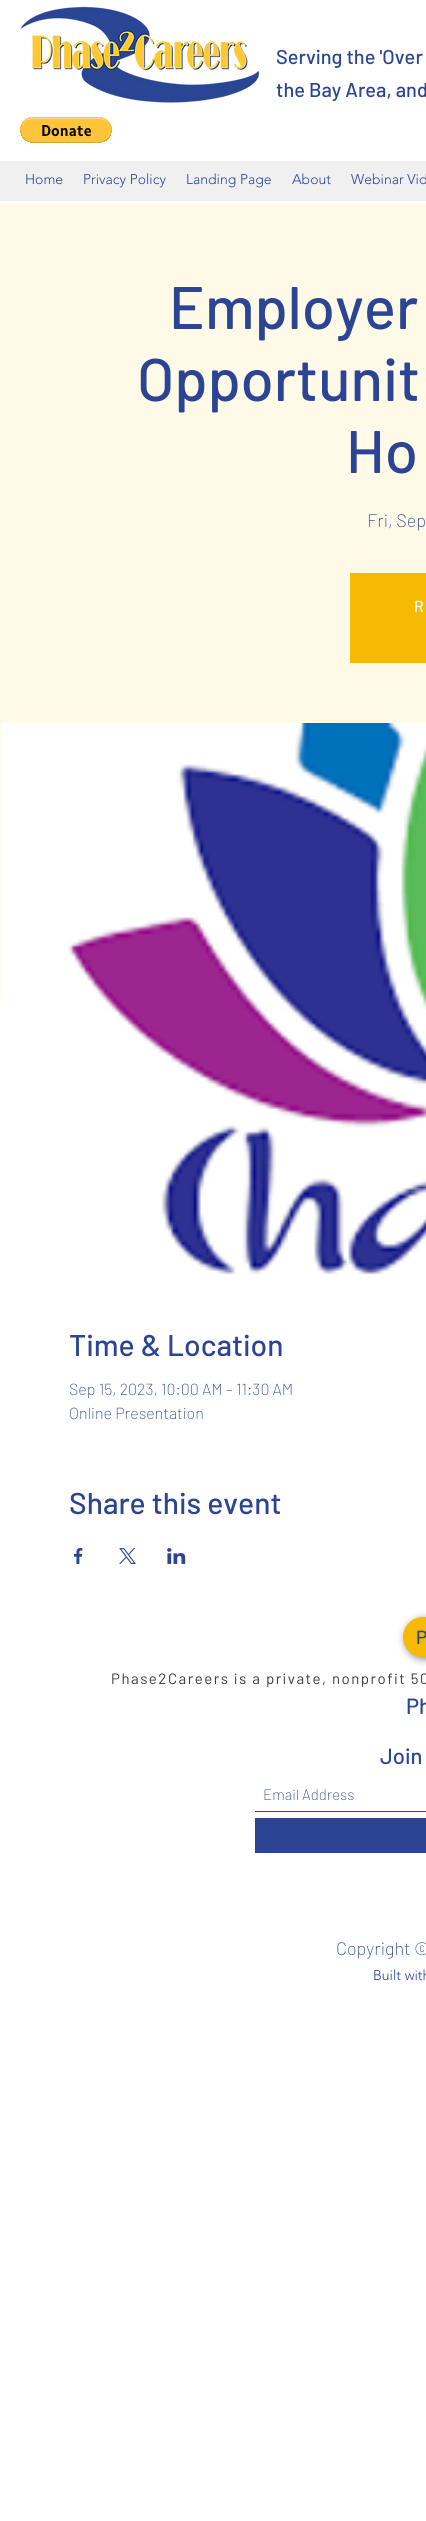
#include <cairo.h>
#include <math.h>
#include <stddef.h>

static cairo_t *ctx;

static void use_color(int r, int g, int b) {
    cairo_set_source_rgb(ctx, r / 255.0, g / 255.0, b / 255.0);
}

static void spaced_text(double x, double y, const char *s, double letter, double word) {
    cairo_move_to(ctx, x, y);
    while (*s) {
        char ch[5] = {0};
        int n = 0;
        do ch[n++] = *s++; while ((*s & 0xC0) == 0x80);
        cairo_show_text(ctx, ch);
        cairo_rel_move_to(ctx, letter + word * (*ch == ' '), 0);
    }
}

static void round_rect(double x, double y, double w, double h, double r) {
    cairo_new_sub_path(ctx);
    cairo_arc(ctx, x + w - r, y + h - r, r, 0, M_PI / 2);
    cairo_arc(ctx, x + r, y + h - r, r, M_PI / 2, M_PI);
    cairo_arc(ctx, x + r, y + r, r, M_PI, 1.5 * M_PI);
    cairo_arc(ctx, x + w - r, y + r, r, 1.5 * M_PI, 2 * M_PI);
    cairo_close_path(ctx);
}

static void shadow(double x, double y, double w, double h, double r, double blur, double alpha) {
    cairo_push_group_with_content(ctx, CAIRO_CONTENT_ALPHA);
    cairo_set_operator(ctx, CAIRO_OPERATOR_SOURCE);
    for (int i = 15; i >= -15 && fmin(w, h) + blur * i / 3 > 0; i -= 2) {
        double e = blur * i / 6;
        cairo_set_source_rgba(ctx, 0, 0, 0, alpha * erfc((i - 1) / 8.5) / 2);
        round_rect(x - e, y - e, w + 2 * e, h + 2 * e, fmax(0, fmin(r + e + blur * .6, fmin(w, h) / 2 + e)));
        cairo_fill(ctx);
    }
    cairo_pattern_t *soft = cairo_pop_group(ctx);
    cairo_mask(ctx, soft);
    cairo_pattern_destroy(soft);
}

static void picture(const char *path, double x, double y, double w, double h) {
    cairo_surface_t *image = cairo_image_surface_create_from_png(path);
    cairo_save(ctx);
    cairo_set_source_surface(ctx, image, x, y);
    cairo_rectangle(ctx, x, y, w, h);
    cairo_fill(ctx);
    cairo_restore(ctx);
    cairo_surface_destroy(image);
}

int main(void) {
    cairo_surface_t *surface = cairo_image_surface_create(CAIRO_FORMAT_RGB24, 426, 2521);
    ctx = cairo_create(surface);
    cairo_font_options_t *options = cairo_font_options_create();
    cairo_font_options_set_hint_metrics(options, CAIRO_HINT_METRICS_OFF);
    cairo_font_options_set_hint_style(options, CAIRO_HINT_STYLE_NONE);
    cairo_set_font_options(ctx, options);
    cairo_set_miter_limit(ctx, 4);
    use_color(255, 255, 255);
    cairo_paint(ctx);
    picture("img1.png", 20, 6, 240, 97);
    cairo_select_font_face(ctx, "Barlow Medium", CAIRO_FONT_SLANT_NORMAL, CAIRO_FONT_WEIGHT_NORMAL);
    cairo_set_font_size(ctx, 20);
    use_color(44, 68, 148);
    cairo_move_to(ctx, 276, 64);
    cairo_show_text(ctx, "Serving the 'Over");
    cairo_move_to(ctx, 276, 97);
    cairo_show_text(ctx, "the Bay Area, and");
    picture("img2.png", 20, 117, 92, 26);
    use_color(240, 240, 240);
    cairo_rectangle(ctx, 0, 161, 426, 40);
    cairo_fill(ctx);
    cairo_select_font_face(ctx, "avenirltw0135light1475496 Light", CAIRO_FONT_SLANT_NORMAL, CAIRO_FONT_WEIGHT_NORMAL);
    cairo_set_font_size(ctx, 14);
    use_color(44, 68, 148);
    cairo_move_to(ctx, 25, 184);
    cairo_show_text(ctx, "Home");
    cairo_move_to(ctx, 83, 184);
    cairo_show_text(ctx, "Privacy Policy");
    cairo_move_to(ctx, 186, 184);
    cairo_show_text(ctx, "Landing Page");
    cairo_move_to(ctx, 292, 184);
    cairo_show_text(ctx, "About");
    cairo_move_to(ctx, 351, 184);
    cairo_show_text(ctx, "Webinar Vid");
    use_color(255, 249, 231);
    cairo_rectangle(ctx, 0, 204, 426, 795);
    cairo_fill(ctx);
    cairo_select_font_face(ctx, "Barlow Medium", CAIRO_FONT_SLANT_NORMAL, CAIRO_FONT_WEIGHT_NORMAL);
    cairo_set_font_size(ctx, 60);
    use_color(44, 68, 148);
    cairo_move_to(ctx, 169, 329);
    cairo_show_text(ctx, "Employer");
    cairo_move_to(ctx, 137, 401);
    cairo_show_text(ctx, "Opportunit");
    cairo_move_to(ctx, 346, 473);
    cairo_show_text(ctx, "Ho");
    cairo_select_font_face(ctx, "Barlow ExtraLight", CAIRO_FONT_SLANT_NORMAL, CAIRO_FONT_WEIGHT_NORMAL);
    cairo_set_font_size(ctx, 18);
    cairo_move_to(ctx, 367, 527);
    cairo_show_text(ctx, "Fri, Sep");
    use_color(246, 186, 5);
    cairo_rectangle(ctx, 350, 573, 76, 90);
    cairo_fill(ctx);
    cairo_select_font_face(ctx, "Barlow Medium", CAIRO_FONT_SLANT_NORMAL, CAIRO_FONT_WEIGHT_NORMAL);
    cairo_set_font_size(ctx, 16);
    use_color(255, 255, 255);
    cairo_move_to(ctx, 414, 612);
    cairo_show_text(ctx, "R");
    picture("img3.png", 1, 723, 425, 552);
    cairo_set_font_size(ctx, 30);
    use_color(44, 68, 148);
    cairo_move_to(ctx, 69, 1356);
    cairo_show_text(ctx, "Time & Location");
    cairo_select_font_face(ctx, "Barlow ExtraLight", CAIRO_FONT_SLANT_NORMAL, CAIRO_FONT_WEIGHT_NORMAL);
    cairo_set_font_size(ctx, 16);
    cairo_move_to(ctx, 69, 1395);
    cairo_show_text(ctx, "Sep 15, 2023, 10:00 AM – 11:30 AM");
    cairo_move_to(ctx, 69, 1419);
    cairo_show_text(ctx, "Online Presentation");
    cairo_select_font_face(ctx, "Barlow Medium", CAIRO_FONT_SLANT_NORMAL, CAIRO_FONT_WEIGHT_NORMAL);
    cairo_set_font_size(ctx, 30);
    cairo_move_to(ctx, 69, 1514);
    cairo_show_text(ctx, "Share this event");
    picture("img4.png", 74, 1548, 9, 16);
    picture("img5.png", 119, 1548, 17, 16);
    picture("img6.png", 167, 1548, 19, 16);
    use_color(0, 0, 0);
    shadow(405, 1619, 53, 40, 20, 4, 0.45);
    use_color(246, 186, 5);
    round_rect(403, 1617, 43, 40, 20);
    cairo_fill(ctx);
    cairo_set_font_size(ctx, 19);
    use_color(44, 68, 148);
    cairo_move_to(ctx, 416, 1644);
    cairo_show_text(ctx, "P");
    cairo_select_font_face(ctx, "Barlow", CAIRO_FONT_SLANT_NORMAL, CAIRO_FONT_WEIGHT_NORMAL);
    cairo_set_font_size(ctx, 15);
    use_color(60, 60, 60);
    spaced_text(111, 1684, "Phase2Careers is a private, nonprofit 50", 1.5, 0);
    cairo_select_font_face(ctx, "Barlow Medium", CAIRO_FONT_SLANT_NORMAL, CAIRO_FONT_WEIGHT_NORMAL);
    cairo_set_font_size(ctx, 22);
    use_color(44, 68, 148);
    cairo_move_to(ctx, 406, 1714);
    cairo_show_text(ctx, "Ph");
    cairo_move_to(ctx, 380, 1764);
    cairo_show_text(ctx, "Join");
    cairo_rectangle(ctx, 255, 1811, 171, 1);
    cairo_fill(ctx);
    cairo_select_font_face(ctx, "Barlow ExtraLight", CAIRO_FONT_SLANT_NORMAL, CAIRO_FONT_WEIGHT_NORMAL);
    cairo_set_font_size(ctx, 15);
    cairo_move_to(ctx, 263, 1800);
    cairo_show_text(ctx, "Email Address");
    cairo_rectangle(ctx, 255, 1818, 171, 35);
    cairo_fill(ctx);
    cairo_set_font_size(ctx, 18);
    cairo_move_to(ctx, 336, 1955);
    cairo_show_text(ctx, "Copyright ©");
    cairo_select_font_face(ctx, "avenirltw0135light1475496 Light", CAIRO_FONT_SLANT_NORMAL, CAIRO_FONT_WEIGHT_NORMAL);
    cairo_set_font_size(ctx, 14);
    cairo_move_to(ctx, 373, 1980);
    cairo_show_text(ctx, "Built with");
    cairo_surface_write_to_png(surface, "result.png");
    cairo_font_options_destroy(options);
    cairo_destroy(ctx);
    cairo_surface_destroy(surface);
    return 0;
}
